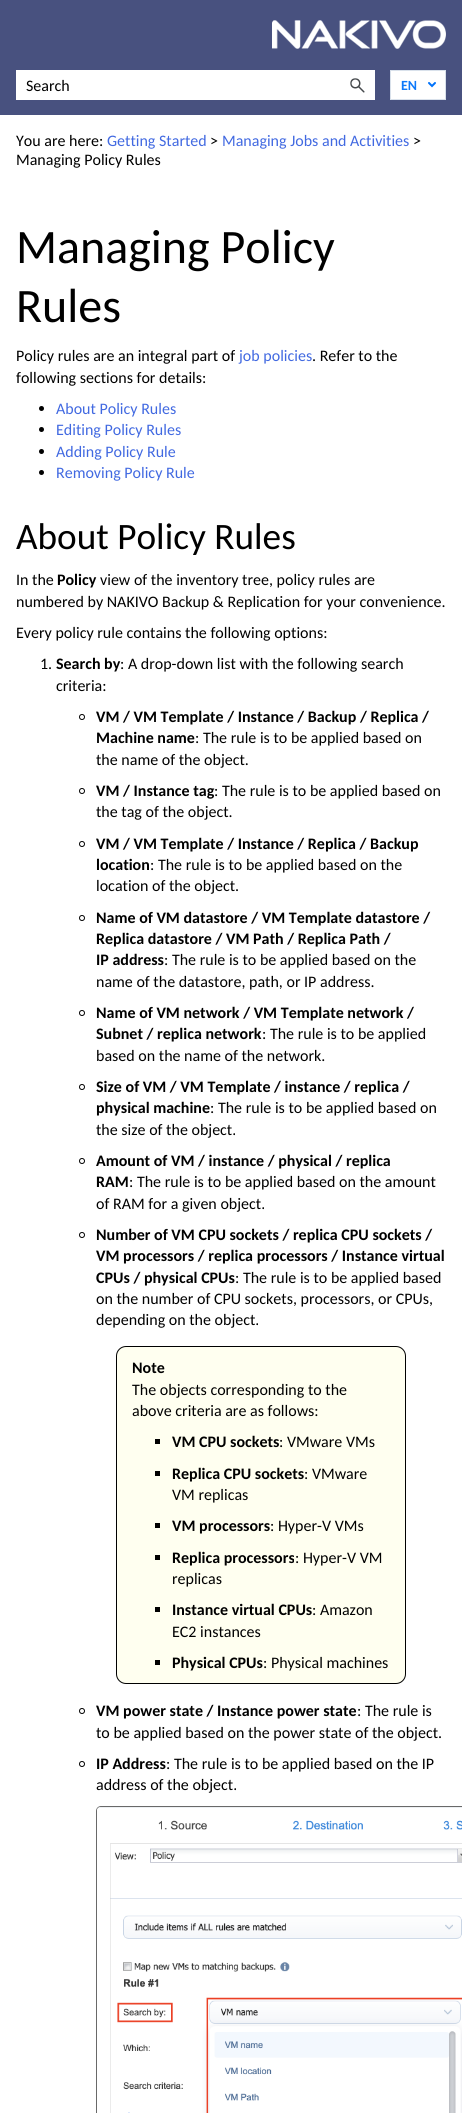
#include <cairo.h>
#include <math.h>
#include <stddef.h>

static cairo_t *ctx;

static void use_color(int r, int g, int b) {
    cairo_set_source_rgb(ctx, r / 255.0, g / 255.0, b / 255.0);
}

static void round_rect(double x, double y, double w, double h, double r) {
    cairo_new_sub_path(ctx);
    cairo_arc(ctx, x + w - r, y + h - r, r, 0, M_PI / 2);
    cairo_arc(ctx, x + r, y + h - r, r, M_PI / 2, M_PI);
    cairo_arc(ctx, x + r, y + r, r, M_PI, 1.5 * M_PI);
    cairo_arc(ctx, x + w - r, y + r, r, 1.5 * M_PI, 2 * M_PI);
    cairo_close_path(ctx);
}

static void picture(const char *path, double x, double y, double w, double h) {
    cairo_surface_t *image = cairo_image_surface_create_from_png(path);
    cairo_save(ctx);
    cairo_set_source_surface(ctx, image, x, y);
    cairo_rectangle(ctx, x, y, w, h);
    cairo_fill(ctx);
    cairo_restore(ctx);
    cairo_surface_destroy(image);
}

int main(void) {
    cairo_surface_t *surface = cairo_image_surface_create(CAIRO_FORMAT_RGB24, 462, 2113);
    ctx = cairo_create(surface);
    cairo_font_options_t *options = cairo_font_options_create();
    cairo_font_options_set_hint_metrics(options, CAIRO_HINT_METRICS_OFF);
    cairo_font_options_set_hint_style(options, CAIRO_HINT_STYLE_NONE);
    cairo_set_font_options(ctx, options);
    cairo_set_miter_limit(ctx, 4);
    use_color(255, 255, 255);
    cairo_paint(ctx);
    use_color(72, 81, 127);
    cairo_rectangle(ctx, 0, 0, 462, 115);
    cairo_fill(ctx);
    picture("img1.png", 272, 20, 174, 29);
    use_color(255, 255, 255);
    cairo_rectangle(ctx, 16, 70, 359, 30);
    cairo_fill(ctx);
    cairo_select_font_face(ctx, "Carlito", CAIRO_FONT_SLANT_NORMAL, CAIRO_FONT_WEIGHT_NORMAL);
    cairo_set_font_size(ctx, 16);
    use_color(0, 0, 0);
    cairo_move_to(ctx, 26, 91);
    cairo_show_text(ctx, "Search");
    picture("img2.png", 350, 78, 15, 15);
    use_color(255, 255, 255);
    cairo_rectangle(ctx, 391, 71, 54, 28);
    cairo_fill(ctx);
    cairo_new_path(ctx);
    cairo_move_to(ctx, 435, 83);
    cairo_line_to(ctx, 432, 86);
    cairo_line_to(ctx, 429, 83);
    use_color(0, 114, 250);
    cairo_set_line_cap(ctx, CAIRO_LINE_CAP_ROUND);
    cairo_stroke(ctx);
    cairo_rectangle(ctx, 390.5, 70.5, 55, 29);
    use_color(217, 225, 235);
    cairo_set_line_width(ctx, 1);
    cairo_set_line_cap(ctx, CAIRO_LINE_CAP_BUTT);
    cairo_stroke(ctx);
    cairo_select_font_face(ctx, "Carlito", CAIRO_FONT_SLANT_NORMAL, CAIRO_FONT_WEIGHT_BOLD);
    cairo_set_font_size(ctx, 14);
    use_color(13, 121, 250);
    cairo_move_to(ctx, 401, 90);
    cairo_show_text(ctx, "EN");
    cairo_select_font_face(ctx, "Carlito", CAIRO_FONT_SLANT_NORMAL, CAIRO_FONT_WEIGHT_NORMAL);
    cairo_set_font_size(ctx, 16);
    use_color(0, 0, 0);
    cairo_move_to(ctx, 16, 146);
    cairo_show_text(ctx, "You are here:");
    use_color(65, 105, 225);
    cairo_move_to(ctx, 107, 146);
    cairo_show_text(ctx, "Getting Started");
    use_color(0, 0, 0);
    cairo_move_to(ctx, 210, 146);
    cairo_show_text(ctx, ">");
    use_color(65, 105, 225);
    cairo_move_to(ctx, 222, 146);
    cairo_show_text(ctx, "Managing Jobs and Activities");
    use_color(0, 0, 0);
    cairo_move_to(ctx, 413, 146);
    cairo_show_text(ctx, ">");
    cairo_move_to(ctx, 16, 165);
    cairo_show_text(ctx, "Managing Policy Rules");
    cairo_set_font_size(ctx, 48);
    cairo_move_to(ctx, 16, 263);
    cairo_show_text(ctx, "Managing Policy");
    cairo_move_to(ctx, 16, 322);
    cairo_show_text(ctx, "Rules");
    cairo_set_font_size(ctx, 16);
    cairo_move_to(ctx, 16, 361);
    cairo_show_text(ctx, "Policy rules are an integral part of");
    use_color(65, 105, 225);
    cairo_move_to(ctx, 239, 361);
    cairo_show_text(ctx, "job policies");
    use_color(0, 0, 0);
    cairo_move_to(ctx, 312, 361);
    cairo_show_text(ctx, ". Refer to the");
    cairo_move_to(ctx, 16, 383);
    cairo_show_text(ctx, "following sections for details:");
    cairo_new_path(ctx);
    cairo_arc(ctx, 41.5, 408.5, 2.5, 0, 2 * M_PI);
    cairo_fill(ctx);
    use_color(65, 105, 225);
    cairo_move_to(ctx, 56, 414);
    cairo_show_text(ctx, "About Policy Rules");
    use_color(0, 0, 0);
    cairo_new_path(ctx);
    cairo_arc(ctx, 41.5, 429.5, 2.5, 0, 2 * M_PI);
    cairo_fill(ctx);
    use_color(65, 105, 225);
    cairo_move_to(ctx, 56, 435);
    cairo_show_text(ctx, "Editing Policy Rules");
    use_color(0, 0, 0);
    cairo_new_path(ctx);
    cairo_arc(ctx, 41.5, 451.5, 2.5, 0, 2 * M_PI);
    cairo_fill(ctx);
    use_color(65, 105, 225);
    cairo_move_to(ctx, 56, 457);
    cairo_show_text(ctx, "Adding Policy Rule");
    use_color(0, 0, 0);
    cairo_new_path(ctx);
    cairo_arc(ctx, 41.5, 472.5, 2.5, 0, 2 * M_PI);
    cairo_fill(ctx);
    use_color(65, 105, 225);
    cairo_move_to(ctx, 56, 478);
    cairo_show_text(ctx, "Removing Policy Rule");
    cairo_set_font_size(ctx, 37.25);
    use_color(0, 0, 0);
    cairo_move_to(ctx, 16, 549);
    cairo_show_text(ctx, "About Policy Rules");
    cairo_set_font_size(ctx, 16);
    cairo_move_to(ctx, 16, 585);
    cairo_show_text(ctx, "In the");
    cairo_select_font_face(ctx, "Carlito", CAIRO_FONT_SLANT_NORMAL, CAIRO_FONT_WEIGHT_BOLD);
    cairo_move_to(ctx, 57, 585);
    cairo_show_text(ctx, "Policy");
    cairo_select_font_face(ctx, "Carlito", CAIRO_FONT_SLANT_NORMAL, CAIRO_FONT_WEIGHT_NORMAL);
    cairo_move_to(ctx, 100, 585);
    cairo_show_text(ctx, "view of the inventory tree, policy rules are");
    cairo_move_to(ctx, 16, 607);
    cairo_show_text(ctx, "numbered by NAKIVO Backup & Replication for your convenience.");
    cairo_move_to(ctx, 16, 638);
    cairo_show_text(ctx, "Every policy rule contains the following options:");
    cairo_move_to(ctx, 40, 669);
    cairo_show_text(ctx, "1.");
    cairo_select_font_face(ctx, "Carlito", CAIRO_FONT_SLANT_NORMAL, CAIRO_FONT_WEIGHT_BOLD);
    cairo_move_to(ctx, 56, 669);
    cairo_show_text(ctx, "Search by");
    cairo_select_font_face(ctx, "Carlito", CAIRO_FONT_SLANT_NORMAL, CAIRO_FONT_WEIGHT_NORMAL);
    cairo_move_to(ctx, 120, 669);
    cairo_show_text(ctx, ": A drop-down list with the following search");
    cairo_move_to(ctx, 56, 691);
    cairo_show_text(ctx, "criteria:");
    cairo_new_path(ctx);
    cairo_arc(ctx, 82, 717, 2.5, 0, 2 * M_PI);
    cairo_stroke(ctx);
    cairo_select_font_face(ctx, "Carlito", CAIRO_FONT_SLANT_NORMAL, CAIRO_FONT_WEIGHT_BOLD);
    cairo_move_to(ctx, 96, 722);
    cairo_show_text(ctx, "VM / VM Template / Instance / Backup / Replica /");
    cairo_move_to(ctx, 96, 743);
    cairo_show_text(ctx, "Machine name");
    cairo_select_font_face(ctx, "Carlito", CAIRO_FONT_SLANT_NORMAL, CAIRO_FONT_WEIGHT_NORMAL);
    cairo_move_to(ctx, 195, 743);
    cairo_show_text(ctx, ": The rule is to be applied based on");
    cairo_move_to(ctx, 96, 765);
    cairo_show_text(ctx, "the name of the object.");
    cairo_new_path(ctx);
    cairo_arc(ctx, 82, 791, 2.5, 0, 2 * M_PI);
    cairo_stroke(ctx);
    cairo_select_font_face(ctx, "Carlito", CAIRO_FONT_SLANT_NORMAL, CAIRO_FONT_WEIGHT_BOLD);
    cairo_move_to(ctx, 96, 796);
    cairo_show_text(ctx, "VM / Instance tag");
    cairo_select_font_face(ctx, "Carlito", CAIRO_FONT_SLANT_NORMAL, CAIRO_FONT_WEIGHT_NORMAL);
    cairo_move_to(ctx, 214, 796);
    cairo_show_text(ctx, ": The rule is to be applied based on");
    cairo_move_to(ctx, 96, 817);
    cairo_show_text(ctx, "the tag of the object.");
    cairo_new_path(ctx);
    cairo_arc(ctx, 82, 844, 2.5, 0, 2 * M_PI);
    cairo_stroke(ctx);
    cairo_select_font_face(ctx, "Carlito", CAIRO_FONT_SLANT_NORMAL, CAIRO_FONT_WEIGHT_BOLD);
    cairo_move_to(ctx, 96, 849);
    cairo_show_text(ctx, "VM / VM Template / Instance / Replica / Backup");
    cairo_move_to(ctx, 96, 870);
    cairo_show_text(ctx, "location");
    cairo_select_font_face(ctx, "Carlito", CAIRO_FONT_SLANT_NORMAL, CAIRO_FONT_WEIGHT_NORMAL);
    cairo_move_to(ctx, 150, 870);
    cairo_show_text(ctx, ": The rule is to be applied based on the");
    cairo_move_to(ctx, 96, 891);
    cairo_show_text(ctx, "location of the object.");
    cairo_new_path(ctx);
    cairo_arc(ctx, 82, 918, 2.5, 0, 2 * M_PI);
    cairo_stroke(ctx);
    cairo_select_font_face(ctx, "Carlito", CAIRO_FONT_SLANT_NORMAL, CAIRO_FONT_WEIGHT_BOLD);
    cairo_move_to(ctx, 96, 923);
    cairo_show_text(ctx, "Name of VM datastore / VM Template datastore /");
    cairo_move_to(ctx, 96, 944);
    cairo_show_text(ctx, "Replica datastore / VM Path / Replica Path /");
    cairo_move_to(ctx, 96, 965);
    cairo_show_text(ctx, "IP address");
    cairo_select_font_face(ctx, "Carlito", CAIRO_FONT_SLANT_NORMAL, CAIRO_FONT_WEIGHT_NORMAL);
    cairo_move_to(ctx, 164, 965);
    cairo_show_text(ctx, ": The rule is to be applied based on the");
    cairo_move_to(ctx, 96, 987);
    cairo_show_text(ctx, "name of the datastore, path, or IP address.");
    cairo_new_path(ctx);
    cairo_arc(ctx, 82, 1013, 2.5, 0, 2 * M_PI);
    cairo_stroke(ctx);
    cairo_select_font_face(ctx, "Carlito", CAIRO_FONT_SLANT_NORMAL, CAIRO_FONT_WEIGHT_BOLD);
    cairo_move_to(ctx, 96, 1018);
    cairo_show_text(ctx, "Name of VM network / VM Template network /");
    cairo_move_to(ctx, 96, 1039);
    cairo_show_text(ctx, "Subnet / replica network");
    cairo_select_font_face(ctx, "Carlito", CAIRO_FONT_SLANT_NORMAL, CAIRO_FONT_WEIGHT_NORMAL);
    cairo_move_to(ctx, 262, 1039);
    cairo_show_text(ctx, ": The rule is to be applied");
    cairo_move_to(ctx, 96, 1061);
    cairo_show_text(ctx, "based on the name of the network.");
    cairo_new_path(ctx);
    cairo_arc(ctx, 82, 1087, 2.5, 0, 2 * M_PI);
    cairo_stroke(ctx);
    cairo_select_font_face(ctx, "Carlito", CAIRO_FONT_SLANT_NORMAL, CAIRO_FONT_WEIGHT_BOLD);
    cairo_move_to(ctx, 96, 1092);
    cairo_show_text(ctx, "Size of VM / VM Template / instance / replica /");
    cairo_move_to(ctx, 96, 1113);
    cairo_show_text(ctx, "physical machine");
    cairo_select_font_face(ctx, "Carlito", CAIRO_FONT_SLANT_NORMAL, CAIRO_FONT_WEIGHT_NORMAL);
    cairo_move_to(ctx, 210, 1113);
    cairo_show_text(ctx, ": The rule is to be applied based on");
    cairo_move_to(ctx, 96, 1135);
    cairo_show_text(ctx, "the size of the object.");
    cairo_new_path(ctx);
    cairo_arc(ctx, 82, 1161, 2.5, 0, 2 * M_PI);
    cairo_stroke(ctx);
    cairo_select_font_face(ctx, "Carlito", CAIRO_FONT_SLANT_NORMAL, CAIRO_FONT_WEIGHT_BOLD);
    cairo_move_to(ctx, 96, 1166);
    cairo_show_text(ctx, "Amount of VM / instance / physical / replica");
    cairo_move_to(ctx, 96, 1187);
    cairo_show_text(ctx, "RAM");
    cairo_select_font_face(ctx, "Carlito", CAIRO_FONT_SLANT_NORMAL, CAIRO_FONT_WEIGHT_NORMAL);
    cairo_move_to(ctx, 129, 1187);
    cairo_show_text(ctx, ": The rule is to be applied based on the amount");
    cairo_move_to(ctx, 96, 1209);
    cairo_show_text(ctx, "of RAM for a given object.");
    cairo_new_path(ctx);
    cairo_arc(ctx, 82, 1235, 2.5, 0, 2 * M_PI);
    cairo_stroke(ctx);
    cairo_select_font_face(ctx, "Carlito", CAIRO_FONT_SLANT_NORMAL, CAIRO_FONT_WEIGHT_BOLD);
    cairo_move_to(ctx, 96, 1240);
    cairo_show_text(ctx, "Number of VM CPU sockets / replica CPU sockets /");
    cairo_move_to(ctx, 96, 1261);
    cairo_show_text(ctx, "VM processors / replica processors / Instance virtual");
    cairo_move_to(ctx, 96, 1283);
    cairo_show_text(ctx, "CPUs / physical CPUs");
    cairo_select_font_face(ctx, "Carlito", CAIRO_FONT_SLANT_NORMAL, CAIRO_FONT_WEIGHT_NORMAL);
    cairo_move_to(ctx, 235, 1283);
    cairo_show_text(ctx, ": The rule is to be applied based");
    cairo_move_to(ctx, 96, 1304);
    cairo_show_text(ctx, "on the number of CPU sockets, processors, or CPUs,");
    cairo_move_to(ctx, 96, 1325);
    cairo_show_text(ctx, "depending on the object.");
    use_color(255, 255, 240);
    round_rect(116.5, 1346.5, 289, 337, 9.5);
    cairo_fill_preserve(ctx);
    use_color(0, 0, 0);
    cairo_stroke(ctx);
    cairo_select_font_face(ctx, "Carlito", CAIRO_FONT_SLANT_NORMAL, CAIRO_FONT_WEIGHT_BOLD);
    cairo_move_to(ctx, 132, 1373);
    cairo_show_text(ctx, "Note");
    cairo_select_font_face(ctx, "Carlito", CAIRO_FONT_SLANT_NORMAL, CAIRO_FONT_WEIGHT_NORMAL);
    cairo_move_to(ctx, 132, 1395);
    cairo_show_text(ctx, "The objects corresponding to the");
    cairo_move_to(ctx, 132, 1416);
    cairo_show_text(ctx, "above criteria are as follows:");
    cairo_rectangle(ctx, 155, 1439, 5, 5);
    cairo_fill(ctx);
    cairo_select_font_face(ctx, "Carlito", CAIRO_FONT_SLANT_NORMAL, CAIRO_FONT_WEIGHT_BOLD);
    cairo_move_to(ctx, 172, 1447);
    cairo_show_text(ctx, "VM CPU sockets");
    cairo_select_font_face(ctx, "Carlito", CAIRO_FONT_SLANT_NORMAL, CAIRO_FONT_WEIGHT_NORMAL);
    cairo_move_to(ctx, 279, 1447);
    cairo_show_text(ctx, ": VMware VMs");
    cairo_rectangle(ctx, 155, 1471, 5, 5);
    cairo_fill(ctx);
    cairo_select_font_face(ctx, "Carlito", CAIRO_FONT_SLANT_NORMAL, CAIRO_FONT_WEIGHT_BOLD);
    cairo_move_to(ctx, 172, 1479);
    cairo_show_text(ctx, "Replica CPU sockets");
    cairo_select_font_face(ctx, "Carlito", CAIRO_FONT_SLANT_NORMAL, CAIRO_FONT_WEIGHT_NORMAL);
    cairo_move_to(ctx, 304, 1479);
    cairo_show_text(ctx, ": VMware");
    cairo_move_to(ctx, 172, 1500);
    cairo_show_text(ctx, "VM replicas");
    cairo_rectangle(ctx, 155, 1523, 5, 5);
    cairo_fill(ctx);
    cairo_select_font_face(ctx, "Carlito", CAIRO_FONT_SLANT_NORMAL, CAIRO_FONT_WEIGHT_BOLD);
    cairo_move_to(ctx, 172, 1531);
    cairo_show_text(ctx, "VM processors");
    cairo_select_font_face(ctx, "Carlito", CAIRO_FONT_SLANT_NORMAL, CAIRO_FONT_WEIGHT_NORMAL);
    cairo_move_to(ctx, 270, 1531);
    cairo_show_text(ctx, ": Hyper-V VMs");
    cairo_rectangle(ctx, 155, 1555, 5, 5);
    cairo_fill(ctx);
    cairo_select_font_face(ctx, "Carlito", CAIRO_FONT_SLANT_NORMAL, CAIRO_FONT_WEIGHT_BOLD);
    cairo_move_to(ctx, 172, 1563);
    cairo_show_text(ctx, "Replica processors");
    cairo_select_font_face(ctx, "Carlito", CAIRO_FONT_SLANT_NORMAL, CAIRO_FONT_WEIGHT_NORMAL);
    cairo_move_to(ctx, 295, 1563);
    cairo_show_text(ctx, ": Hyper-V VM");
    cairo_move_to(ctx, 172, 1584);
    cairo_show_text(ctx, "replicas");
    cairo_rectangle(ctx, 155, 1607, 5, 5);
    cairo_fill(ctx);
    cairo_select_font_face(ctx, "Carlito", CAIRO_FONT_SLANT_NORMAL, CAIRO_FONT_WEIGHT_BOLD);
    cairo_move_to(ctx, 172, 1615);
    cairo_show_text(ctx, "Instance virtual CPUs");
    cairo_select_font_face(ctx, "Carlito", CAIRO_FONT_SLANT_NORMAL, CAIRO_FONT_WEIGHT_NORMAL);
    cairo_move_to(ctx, 312, 1615);
    cairo_show_text(ctx, ": Amazon");
    cairo_move_to(ctx, 172, 1637);
    cairo_show_text(ctx, "EC2 instances");
    cairo_rectangle(ctx, 155, 1660, 5, 5);
    cairo_fill(ctx);
    cairo_select_font_face(ctx, "Carlito", CAIRO_FONT_SLANT_NORMAL, CAIRO_FONT_WEIGHT_BOLD);
    cairo_move_to(ctx, 172, 1668);
    cairo_show_text(ctx, "Physical CPUs");
    cairo_select_font_face(ctx, "Carlito", CAIRO_FONT_SLANT_NORMAL, CAIRO_FONT_WEIGHT_NORMAL);
    cairo_move_to(ctx, 263, 1668);
    cairo_show_text(ctx, ": Physical machines");
    cairo_new_path(ctx);
    cairo_arc(ctx, 82, 1711, 2.5, 0, 2 * M_PI);
    cairo_stroke(ctx);
    cairo_select_font_face(ctx, "Carlito", CAIRO_FONT_SLANT_NORMAL, CAIRO_FONT_WEIGHT_BOLD);
    cairo_move_to(ctx, 96, 1716);
    cairo_show_text(ctx, "VM power state / Instance power state");
    cairo_select_font_face(ctx, "Carlito", CAIRO_FONT_SLANT_NORMAL, CAIRO_FONT_WEIGHT_NORMAL);
    cairo_move_to(ctx, 357, 1716);
    cairo_show_text(ctx, ": The rule is");
    cairo_move_to(ctx, 96, 1738);
    cairo_show_text(ctx, "to be applied based on the power state of the object.");
    cairo_new_path(ctx);
    cairo_arc(ctx, 82, 1764, 2.5, 0, 2 * M_PI);
    cairo_stroke(ctx);
    cairo_select_font_face(ctx, "Carlito", CAIRO_FONT_SLANT_NORMAL, CAIRO_FONT_WEIGHT_BOLD);
    cairo_move_to(ctx, 96, 1769);
    cairo_show_text(ctx, "IP Address");
    cairo_select_font_face(ctx, "Carlito", CAIRO_FONT_SLANT_NORMAL, CAIRO_FONT_WEIGHT_NORMAL);
    cairo_move_to(ctx, 166, 1769);
    cairo_show_text(ctx, ": The rule is to be applied based on the IP");
    cairo_move_to(ctx, 96, 1790);
    cairo_show_text(ctx, "address of the object.");
    round_rect(96.5, 1806.5, 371, 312, 4.5);
    use_color(105, 105, 105);
    cairo_stroke(ctx);
    picture("img3.png", 97, 1807, 365, 306);
    cairo_surface_write_to_png(surface, "result.png");
    cairo_font_options_destroy(options);
    cairo_destroy(ctx);
    cairo_surface_destroy(surface);
    return 0;
}
